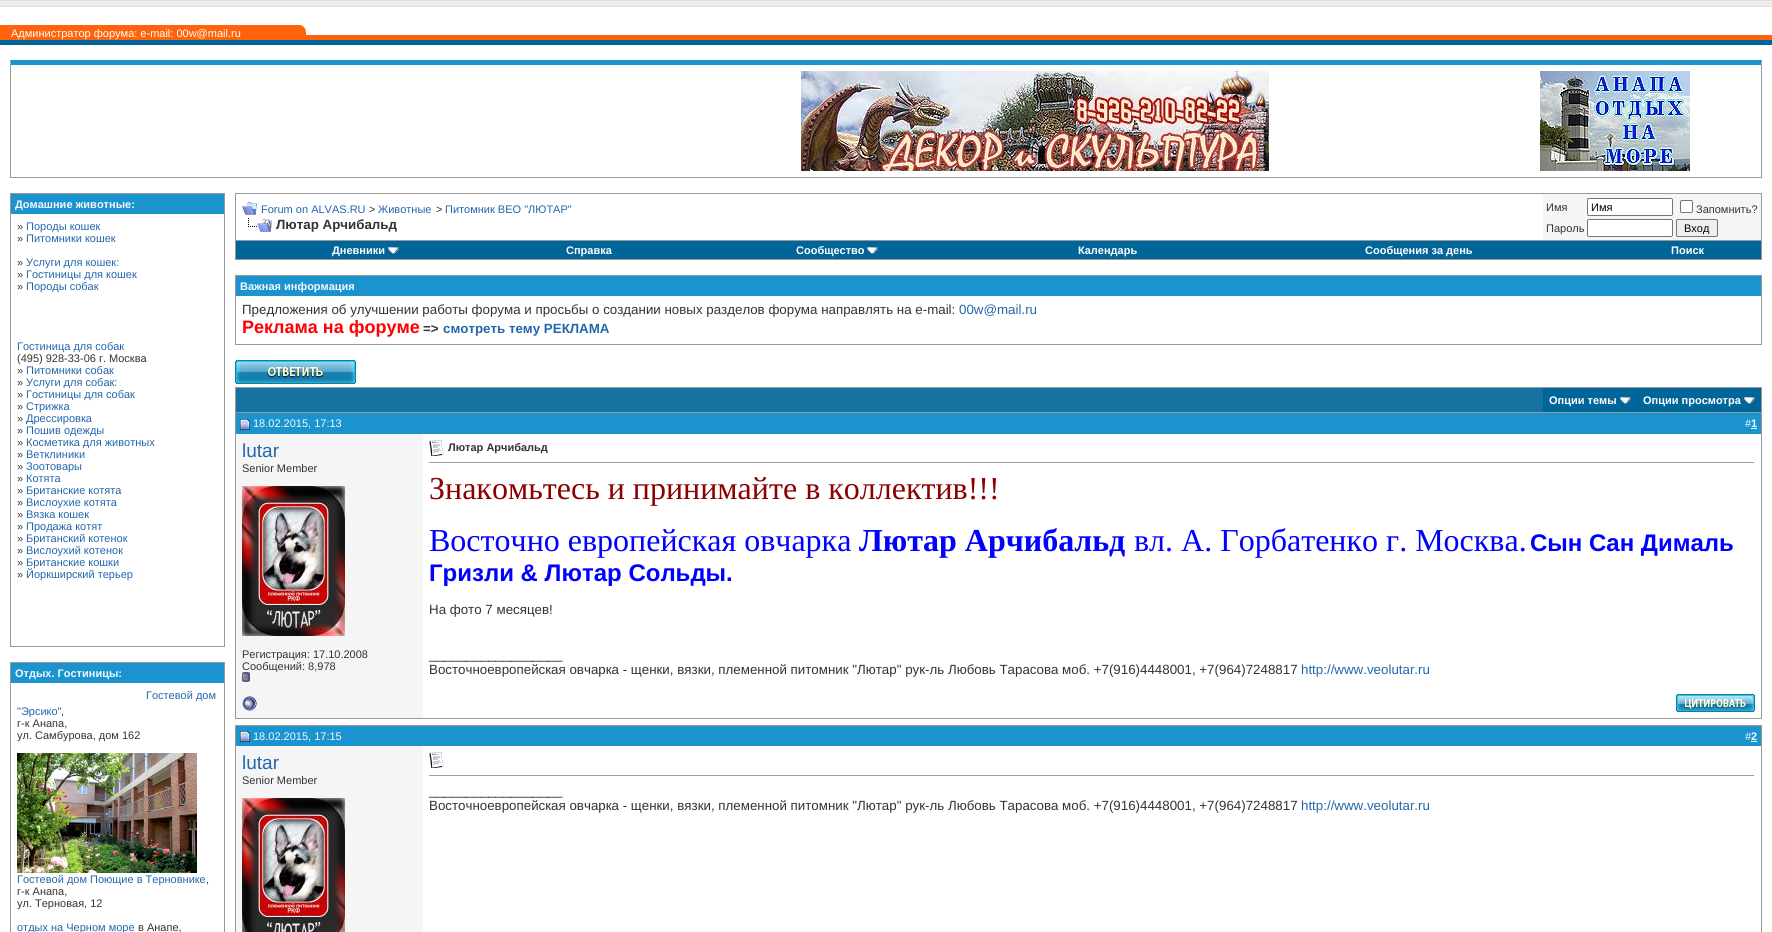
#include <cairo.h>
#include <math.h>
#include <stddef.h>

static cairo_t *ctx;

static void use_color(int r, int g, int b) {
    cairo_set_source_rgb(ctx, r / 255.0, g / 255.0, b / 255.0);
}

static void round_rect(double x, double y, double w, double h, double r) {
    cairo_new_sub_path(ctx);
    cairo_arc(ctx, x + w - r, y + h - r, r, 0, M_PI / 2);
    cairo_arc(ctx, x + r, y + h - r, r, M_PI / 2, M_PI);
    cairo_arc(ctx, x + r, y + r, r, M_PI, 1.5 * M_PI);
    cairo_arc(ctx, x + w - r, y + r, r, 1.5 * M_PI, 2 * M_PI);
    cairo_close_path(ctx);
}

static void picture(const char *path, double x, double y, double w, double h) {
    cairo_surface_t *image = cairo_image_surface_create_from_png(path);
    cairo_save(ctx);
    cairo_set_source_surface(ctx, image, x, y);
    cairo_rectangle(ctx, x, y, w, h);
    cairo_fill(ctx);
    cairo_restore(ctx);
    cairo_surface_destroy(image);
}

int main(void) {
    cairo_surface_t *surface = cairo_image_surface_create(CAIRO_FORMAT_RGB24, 1772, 932);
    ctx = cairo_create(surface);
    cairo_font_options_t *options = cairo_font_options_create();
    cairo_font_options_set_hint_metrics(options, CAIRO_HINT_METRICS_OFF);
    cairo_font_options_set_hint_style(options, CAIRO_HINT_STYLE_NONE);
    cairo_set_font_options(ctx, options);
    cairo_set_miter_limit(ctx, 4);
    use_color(255, 255, 255);
    cairo_paint(ctx);
    use_color(242, 236, 233);
    cairo_rectangle(ctx, 0, 0, 1772, 7);
    cairo_fill(ctx);
    cairo_new_path(ctx);
    cairo_move_to(ctx, 0, 0.5);
    cairo_line_to(ctx, 1772, 0.5);
    use_color(204, 204, 204);
    cairo_set_line_width(ctx, 1);
    cairo_set_dash(ctx, (double[]){1, 1}, 2, 0);
    cairo_stroke(ctx);
    cairo_new_path(ctx);
    cairo_move_to(ctx, 0, 6.5);
    cairo_line_to(ctx, 1772, 6.5);
    cairo_stroke(ctx);
    use_color(0, 102, 153);
    cairo_rectangle(ctx, 0, 40, 1772, 5);
    cairo_fill(ctx);
    use_color(255, 99, 11);
    cairo_rectangle(ctx, 0, 25, 306, 15);
    cairo_fill(ctx);
    cairo_select_font_face(ctx, "Liberation Sans", CAIRO_FONT_SLANT_NORMAL, CAIRO_FONT_WEIGHT_NORMAL);
    cairo_set_font_size(ctx, 11);
    use_color(255, 255, 255);
    cairo_move_to(ctx, 11, 37);
    cairo_show_text(ctx, "Администратор форума: e-mail: 00w@mail.ru");
    picture("img1.png", 300, 25, 6, 7);
    use_color(255, 99, 11);
    cairo_rectangle(ctx, 306, 35, 1466, 5);
    cairo_fill(ctx);
    use_color(27, 147, 207);
    cairo_new_path(ctx);
    cairo_move_to(ctx, 10, 60);
    cairo_line_to(ctx, 1762, 60);
    cairo_line_to(ctx, 1761, 65);
    cairo_line_to(ctx, 11, 65);
    cairo_close_path(ctx);
    cairo_fill(ctx);
    use_color(153, 153, 153);
    cairo_new_path(ctx);
    cairo_move_to(ctx, 1762, 60);
    cairo_line_to(ctx, 1762, 178);
    cairo_line_to(ctx, 1761, 177);
    cairo_line_to(ctx, 1761, 65);
    cairo_close_path(ctx);
    cairo_fill(ctx);
    cairo_rectangle(ctx, 10, 177, 1752, 1);
    cairo_fill(ctx);
    cairo_new_path(ctx);
    cairo_move_to(ctx, 10, 178);
    cairo_line_to(ctx, 10, 60);
    cairo_line_to(ctx, 11, 65);
    cairo_line_to(ctx, 11, 177);
    cairo_close_path(ctx);
    cairo_fill(ctx);
    picture("img2.png", 801, 71, 468, 100);
    picture("img3.png", 1540, 71, 150, 100);
    cairo_rectangle(ctx, 10.5, 193.5, 214, 453);
    cairo_set_dash(ctx, NULL, 0, 0);
    cairo_stroke(ctx);
    use_color(27, 147, 207);
    cairo_rectangle(ctx, 11, 194, 213, 20);
    cairo_fill(ctx);
    cairo_select_font_face(ctx, "Liberation Sans", CAIRO_FONT_SLANT_NORMAL, CAIRO_FONT_WEIGHT_BOLD);
    use_color(241, 250, 252);
    cairo_move_to(ctx, 15, 208);
    cairo_show_text(ctx, "Домашние животные:");
    cairo_select_font_face(ctx, "Liberation Sans", CAIRO_FONT_SLANT_NORMAL, CAIRO_FONT_WEIGHT_NORMAL);
    use_color(51, 51, 51);
    cairo_move_to(ctx, 17, 230);
    cairo_show_text(ctx, "»");
    use_color(34, 102, 171);
    cairo_move_to(ctx, 26, 230);
    cairo_show_text(ctx, "Породы кошек");
    use_color(51, 51, 51);
    cairo_move_to(ctx, 17, 242);
    cairo_show_text(ctx, "»");
    use_color(34, 102, 171);
    cairo_move_to(ctx, 26, 242);
    cairo_show_text(ctx, "Питомники кошек");
    use_color(51, 51, 51);
    cairo_move_to(ctx, 17, 266);
    cairo_show_text(ctx, "»");
    use_color(34, 102, 171);
    cairo_move_to(ctx, 26, 266);
    cairo_show_text(ctx, "Услуги для кошек:");
    use_color(51, 51, 51);
    cairo_move_to(ctx, 17, 278);
    cairo_show_text(ctx, "»");
    use_color(34, 102, 171);
    cairo_move_to(ctx, 26, 278);
    cairo_show_text(ctx, "Гостиницы для кошек");
    use_color(51, 51, 51);
    cairo_move_to(ctx, 17, 290);
    cairo_show_text(ctx, "»");
    use_color(34, 102, 171);
    cairo_move_to(ctx, 26, 290);
    cairo_show_text(ctx, "Породы собак");
    cairo_move_to(ctx, 17, 350);
    cairo_show_text(ctx, "Гостиница для собак");
    use_color(51, 51, 51);
    cairo_move_to(ctx, 17, 362);
    cairo_show_text(ctx, "(495) 928-33-06 г. Москва");
    cairo_move_to(ctx, 17, 374);
    cairo_show_text(ctx, "»");
    use_color(34, 102, 171);
    cairo_move_to(ctx, 26, 374);
    cairo_show_text(ctx, "Питомники собак");
    use_color(51, 51, 51);
    cairo_move_to(ctx, 17, 386);
    cairo_show_text(ctx, "»");
    use_color(34, 102, 171);
    cairo_move_to(ctx, 26, 386);
    cairo_show_text(ctx, "Услуги для собак:");
    use_color(51, 51, 51);
    cairo_move_to(ctx, 17, 398);
    cairo_show_text(ctx, "»");
    use_color(34, 102, 171);
    cairo_move_to(ctx, 26, 398);
    cairo_show_text(ctx, "Гостиницы для собак");
    use_color(51, 51, 51);
    cairo_move_to(ctx, 17, 410);
    cairo_show_text(ctx, "»");
    use_color(34, 102, 171);
    cairo_move_to(ctx, 26, 410);
    cairo_show_text(ctx, "Стрижка");
    use_color(51, 51, 51);
    cairo_move_to(ctx, 17, 422);
    cairo_show_text(ctx, "»");
    use_color(34, 102, 171);
    cairo_move_to(ctx, 26, 422);
    cairo_show_text(ctx, "Дрессировка");
    use_color(51, 51, 51);
    cairo_move_to(ctx, 17, 434);
    cairo_show_text(ctx, "»");
    use_color(34, 102, 171);
    cairo_move_to(ctx, 26, 434);
    cairo_show_text(ctx, "Пошив одежды");
    use_color(51, 51, 51);
    cairo_move_to(ctx, 17, 446);
    cairo_show_text(ctx, "»");
    use_color(34, 102, 171);
    cairo_move_to(ctx, 26, 446);
    cairo_show_text(ctx, "Косметика для животных");
    use_color(51, 51, 51);
    cairo_move_to(ctx, 17, 458);
    cairo_show_text(ctx, "»");
    use_color(34, 102, 171);
    cairo_move_to(ctx, 26, 458);
    cairo_show_text(ctx, "Ветклиники");
    use_color(51, 51, 51);
    cairo_move_to(ctx, 17, 470);
    cairo_show_text(ctx, "»");
    use_color(34, 102, 171);
    cairo_move_to(ctx, 26, 470);
    cairo_show_text(ctx, "Зоотовары");
    use_color(51, 51, 51);
    cairo_move_to(ctx, 17, 482);
    cairo_show_text(ctx, "»");
    use_color(34, 102, 171);
    cairo_move_to(ctx, 26, 482);
    cairo_show_text(ctx, "Котята");
    use_color(51, 51, 51);
    cairo_move_to(ctx, 17, 494);
    cairo_show_text(ctx, "»");
    use_color(34, 102, 171);
    cairo_move_to(ctx, 26, 494);
    cairo_show_text(ctx, "Британские котята");
    use_color(51, 51, 51);
    cairo_move_to(ctx, 17, 506);
    cairo_show_text(ctx, "»");
    use_color(34, 102, 171);
    cairo_move_to(ctx, 26, 506);
    cairo_show_text(ctx, "Вислоухие котята");
    use_color(51, 51, 51);
    cairo_move_to(ctx, 17, 518);
    cairo_show_text(ctx, "»");
    use_color(34, 102, 171);
    cairo_move_to(ctx, 26, 518);
    cairo_show_text(ctx, "Вязка кошек");
    use_color(51, 51, 51);
    cairo_move_to(ctx, 17, 530);
    cairo_show_text(ctx, "»");
    use_color(34, 102, 171);
    cairo_move_to(ctx, 26, 530);
    cairo_show_text(ctx, "Продажа котят");
    use_color(51, 51, 51);
    cairo_move_to(ctx, 17, 542);
    cairo_show_text(ctx, "»");
    use_color(34, 102, 171);
    cairo_move_to(ctx, 26, 542);
    cairo_show_text(ctx, "Британский котенок");
    use_color(51, 51, 51);
    cairo_move_to(ctx, 17, 554);
    cairo_show_text(ctx, "»");
    use_color(34, 102, 171);
    cairo_move_to(ctx, 26, 554);
    cairo_show_text(ctx, "Вислоухий котенок");
    use_color(51, 51, 51);
    cairo_move_to(ctx, 17, 566);
    cairo_show_text(ctx, "»");
    use_color(34, 102, 171);
    cairo_move_to(ctx, 26, 566);
    cairo_show_text(ctx, "Британские кошки");
    use_color(51, 51, 51);
    cairo_move_to(ctx, 17, 578);
    cairo_show_text(ctx, "»");
    use_color(34, 102, 171);
    cairo_move_to(ctx, 26, 578);
    cairo_show_text(ctx, "Йоркширский терьер");
    cairo_rectangle(ctx, 10.5, 662.5, 214, 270);
    use_color(153, 153, 153);
    cairo_stroke(ctx);
    use_color(27, 147, 207);
    cairo_rectangle(ctx, 11, 663, 213, 20);
    cairo_fill(ctx);
    cairo_select_font_face(ctx, "Liberation Sans", CAIRO_FONT_SLANT_NORMAL, CAIRO_FONT_WEIGHT_BOLD);
    use_color(241, 250, 252);
    cairo_move_to(ctx, 15, 677);
    cairo_show_text(ctx, "Отдых. Гостиницы:");
    cairo_select_font_face(ctx, "Liberation Sans", CAIRO_FONT_SLANT_NORMAL, CAIRO_FONT_WEIGHT_NORMAL);
    use_color(34, 102, 171);
    cairo_move_to(ctx, 146, 699);
    cairo_show_text(ctx, "Гостевой дом");
    cairo_move_to(ctx, 17, 715);
    cairo_show_text(ctx, "\"Эрсико\"");
    use_color(51, 51, 51);
    cairo_move_to(ctx, 61, 715);
    cairo_show_text(ctx, ",");
    cairo_move_to(ctx, 17, 727);
    cairo_show_text(ctx, "г-к Анапа,");
    cairo_move_to(ctx, 17, 739);
    cairo_show_text(ctx, "ул. Самбурова, дом 162");
    picture("img4.png", 17, 753, 180, 120);
    use_color(34, 102, 171);
    cairo_move_to(ctx, 17, 883);
    cairo_show_text(ctx, "Гостевой дом Поющие в Терновнике");
    use_color(51, 51, 51);
    cairo_move_to(ctx, 206, 883);
    cairo_show_text(ctx, ",");
    cairo_move_to(ctx, 17, 895);
    cairo_show_text(ctx, "г-к Анапа,");
    cairo_move_to(ctx, 17, 907);
    cairo_show_text(ctx, "ул. Терновая, 12");
    use_color(34, 102, 171);
    cairo_move_to(ctx, 17, 931);
    cairo_show_text(ctx, "отдых на Черном море");
    use_color(51, 51, 51);
    cairo_move_to(ctx, 138, 931);
    cairo_show_text(ctx, "в Анапе,");
    cairo_rectangle(ctx, 235.5, 193.5, 1526, 47);
    use_color(153, 153, 153);
    cairo_stroke(ctx);
    picture("img5.png", 242, 202, 15, 13);
    use_color(34, 102, 171);
    cairo_move_to(ctx, 261, 213);
    cairo_show_text(ctx, "Forum on ALVAS.RU");
    use_color(51, 51, 51);
    cairo_move_to(ctx, 369, 213);
    cairo_show_text(ctx, ">");
    use_color(34, 102, 171);
    cairo_move_to(ctx, 378, 213);
    cairo_show_text(ctx, "Животные");
    use_color(51, 51, 51);
    cairo_move_to(ctx, 436, 213);
    cairo_show_text(ctx, ">");
    use_color(34, 102, 171);
    cairo_move_to(ctx, 445, 213);
    cairo_show_text(ctx, "Питомник ВЕО \"ЛЮТАР\"");
    picture("img6.png", 248, 218, 24, 14);
    cairo_select_font_face(ctx, "Liberation Sans", CAIRO_FONT_SLANT_NORMAL, CAIRO_FONT_WEIGHT_BOLD);
    cairo_set_font_size(ctx, 13.33);
    use_color(51, 51, 51);
    cairo_move_to(ctx, 276, 229);
    cairo_show_text(ctx, "Лютар Арчибальд");
    use_color(245, 245, 245);
    cairo_rectangle(ctx, 1543, 194, 218, 46);
    cairo_fill(ctx);
    cairo_select_font_face(ctx, "Liberation Sans", CAIRO_FONT_SLANT_NORMAL, CAIRO_FONT_WEIGHT_NORMAL);
    cairo_set_font_size(ctx, 11);
    use_color(51, 51, 51);
    cairo_move_to(ctx, 1546, 211);
    cairo_show_text(ctx, "Имя");
    use_color(255, 255, 255);
    round_rect(1587.5, 198.5, 85, 17, 1.5);
    cairo_fill_preserve(ctx);
    use_color(118, 118, 118);
    cairo_stroke(ctx);
    use_color(0, 0, 0);
    cairo_move_to(ctx, 1591, 211);
    cairo_show_text(ctx, "Имя");
    use_color(255, 255, 255);
    round_rect(1680.5, 200.5, 12, 12, 1.5);
    cairo_fill_preserve(ctx);
    use_color(118, 118, 118);
    cairo_stroke(ctx);
    use_color(51, 51, 51);
    cairo_move_to(ctx, 1696, 213);
    cairo_show_text(ctx, "Запомнить?");
    cairo_move_to(ctx, 1546, 232);
    cairo_show_text(ctx, "Пароль");
    use_color(255, 255, 255);
    round_rect(1587.5, 219.5, 85, 17, 1.5);
    cairo_fill_preserve(ctx);
    use_color(118, 118, 118);
    cairo_stroke(ctx);
    use_color(239, 239, 239);
    round_rect(1676.5, 219.5, 41, 17, 1.5);
    cairo_fill_preserve(ctx);
    use_color(118, 118, 118);
    cairo_stroke(ctx);
    use_color(0, 0, 0);
    cairo_move_to(ctx, 1684, 232);
    cairo_show_text(ctx, "Вход");
    use_color(153, 153, 153);
    cairo_rectangle(ctx, 1761, 241, 1, 19);
    cairo_fill(ctx);
    cairo_rectangle(ctx, 235, 259, 1527, 1);
    cairo_fill(ctx);
    cairo_rectangle(ctx, 235, 241, 1, 19);
    cairo_fill(ctx);
    use_color(0, 102, 153);
    cairo_rectangle(ctx, 236, 241, 1525, 18);
    cairo_fill(ctx);
    cairo_select_font_face(ctx, "Liberation Sans", CAIRO_FONT_SLANT_NORMAL, CAIRO_FONT_WEIGHT_BOLD);
    use_color(255, 255, 255);
    cairo_move_to(ctx, 332, 254);
    cairo_show_text(ctx, "Дневники");
    picture("img7.png", 388, 247, 11, 7);
    cairo_move_to(ctx, 566, 254);
    cairo_show_text(ctx, "Справка");
    cairo_move_to(ctx, 796, 254);
    cairo_show_text(ctx, "Сообщество");
    picture("img7.png", 867, 247, 11, 7);
    cairo_move_to(ctx, 1078, 254);
    cairo_show_text(ctx, "Календарь");
    cairo_move_to(ctx, 1365, 254);
    cairo_show_text(ctx, "Сообщения за день");
    cairo_move_to(ctx, 1671, 254);
    cairo_show_text(ctx, "Поиск");
    cairo_rectangle(ctx, 235.5, 275.5, 1526, 69);
    use_color(153, 153, 153);
    cairo_stroke(ctx);
    use_color(27, 147, 207);
    cairo_rectangle(ctx, 236, 276, 1525, 20);
    cairo_fill(ctx);
    use_color(241, 250, 252);
    cairo_move_to(ctx, 240, 290);
    cairo_show_text(ctx, "Важная информация");
    cairo_select_font_face(ctx, "Liberation Sans", CAIRO_FONT_SLANT_NORMAL, CAIRO_FONT_WEIGHT_NORMAL);
    cairo_set_font_size(ctx, 13.33);
    use_color(51, 51, 51);
    cairo_move_to(ctx, 242, 314);
    cairo_show_text(ctx, "Предложения об улучшении работы форума и просьбы о создании новых разделов форума направлять на e-mail:");
    use_color(34, 102, 171);
    cairo_move_to(ctx, 959, 314);
    cairo_show_text(ctx, "00w@mail.ru");
    cairo_select_font_face(ctx, "Liberation Sans", CAIRO_FONT_SLANT_NORMAL, CAIRO_FONT_WEIGHT_BOLD);
    cairo_set_font_size(ctx, 18);
    use_color(255, 0, 0);
    cairo_move_to(ctx, 242, 333);
    cairo_show_text(ctx, "Реклама на форуме");
    cairo_set_font_size(ctx, 13.33);
    use_color(51, 51, 51);
    cairo_move_to(ctx, 423, 333);
    cairo_show_text(ctx, "=>");
    use_color(34, 102, 171);
    cairo_move_to(ctx, 443, 333);
    cairo_show_text(ctx, "смотреть тему РЕКЛАМА");
    picture("img8.png", 235, 360, 121, 24);
    use_color(153, 153, 153);
    cairo_rectangle(ctx, 235, 387, 1527, 1);
    cairo_fill(ctx);
    cairo_rectangle(ctx, 1761, 387, 1, 25);
    cairo_fill(ctx);
    cairo_rectangle(ctx, 235, 387, 1, 25);
    cairo_fill(ctx);
    use_color(22, 114, 160);
    cairo_rectangle(ctx, 236, 388, 1307, 24);
    cairo_fill(ctx);
    use_color(0, 102, 153);
    cairo_rectangle(ctx, 1543, 388, 218, 24);
    cairo_fill(ctx);
    cairo_set_font_size(ctx, 11);
    use_color(255, 255, 255);
    cairo_move_to(ctx, 1549, 404);
    cairo_show_text(ctx, "Опции темы");
    picture("img7.png", 1620, 397, 11, 7);
    cairo_move_to(ctx, 1643, 404);
    cairo_show_text(ctx, "Опции просмотра");
    picture("img7.png", 1744, 397, 11, 7);
    cairo_rectangle(ctx, 235.5, 412.5, 1526, 306);
    use_color(153, 153, 153);
    cairo_stroke(ctx);
    use_color(27, 147, 207);
    cairo_rectangle(ctx, 236, 413, 1525, 21);
    cairo_fill(ctx);
    picture("img9.png", 240, 419, 10, 11);
    cairo_select_font_face(ctx, "Liberation Sans", CAIRO_FONT_SLANT_NORMAL, CAIRO_FONT_WEIGHT_NORMAL);
    use_color(241, 250, 252);
    cairo_move_to(ctx, 253, 427);
    cairo_show_text(ctx, "18.02.2015, 17:13");
    cairo_move_to(ctx, 1745, 427);
    cairo_show_text(ctx, "#");
    cairo_select_font_face(ctx, "Liberation Sans", CAIRO_FONT_SLANT_NORMAL, CAIRO_FONT_WEIGHT_BOLD);
    cairo_move_to(ctx, 1751, 427);
    cairo_show_text(ctx, "1");
    cairo_rectangle(ctx, 1751, 428, 6, 1);
    cairo_fill(ctx);
    use_color(245, 245, 245);
    cairo_rectangle(ctx, 236, 434, 187, 284);
    cairo_fill(ctx);
    cairo_select_font_face(ctx, "Liberation Sans", CAIRO_FONT_SLANT_NORMAL, CAIRO_FONT_WEIGHT_NORMAL);
    cairo_set_font_size(ctx, 19);
    use_color(34, 102, 171);
    cairo_move_to(ctx, 242, 457);
    cairo_show_text(ctx, "lutar");
    cairo_set_font_size(ctx, 11);
    use_color(51, 51, 51);
    cairo_move_to(ctx, 242, 472);
    cairo_show_text(ctx, "Senior Member");
    picture("img10.png", 242, 486, 103, 150);
    cairo_move_to(ctx, 242, 658);
    cairo_show_text(ctx, "Регистрация: 17.10.2008");
    cairo_move_to(ctx, 242, 670);
    cairo_show_text(ctx, "Сообщений: 8,978");
    picture("img11.png", 242, 672, 8, 10);
    picture("img12.png", 429, 440, 15, 16);
    cairo_select_font_face(ctx, "Liberation Sans", CAIRO_FONT_SLANT_NORMAL, CAIRO_FONT_WEIGHT_BOLD);
    cairo_move_to(ctx, 448, 451);
    cairo_show_text(ctx, "Лютар Арчибальд");
    use_color(159, 159, 159);
    cairo_rectangle(ctx, 429, 462, 1326, 1);
    cairo_fill(ctx);
    use_color(238, 238, 238);
    cairo_rectangle(ctx, 1754, 462, 1, 1);
    cairo_fill(ctx);
    cairo_select_font_face(ctx, "Liberation Serif", CAIRO_FONT_SLANT_NORMAL, CAIRO_FONT_WEIGHT_NORMAL);
    cairo_set_font_size(ctx, 32);
    use_color(139, 0, 0);
    cairo_move_to(ctx, 429, 499);
    cairo_show_text(ctx, "Знакомьтесь и принимайте в коллектив!!!");
    use_color(0, 0, 255);
    cairo_move_to(ctx, 429, 551);
    cairo_show_text(ctx, "Восточно европейская овчарка");
    cairo_select_font_face(ctx, "Liberation Serif", CAIRO_FONT_SLANT_NORMAL, CAIRO_FONT_WEIGHT_BOLD);
    cairo_move_to(ctx, 859, 551);
    cairo_show_text(ctx, "Лютар Арчибальд");
    cairo_select_font_face(ctx, "Liberation Serif", CAIRO_FONT_SLANT_NORMAL, CAIRO_FONT_WEIGHT_NORMAL);
    cairo_move_to(ctx, 1134, 551);
    cairo_show_text(ctx, "вл. А. Горбатенко г. Москва.");
    cairo_select_font_face(ctx, "Liberation Sans", CAIRO_FONT_SLANT_NORMAL, CAIRO_FONT_WEIGHT_BOLD);
    cairo_set_font_size(ctx, 24);
    cairo_move_to(ctx, 1530, 551);
    cairo_show_text(ctx, "Сын Сан Дималь");
    cairo_move_to(ctx, 429, 581);
    cairo_show_text(ctx, "Гризли & Лютар Сольды.");
    cairo_select_font_face(ctx, "Liberation Sans", CAIRO_FONT_SLANT_NORMAL, CAIRO_FONT_WEIGHT_NORMAL);
    cairo_set_font_size(ctx, 13.33);
    use_color(51, 51, 51);
    cairo_move_to(ctx, 429, 614);
    cairo_show_text(ctx, "На фото 7 месяцев!");
    cairo_move_to(ctx, 429, 659);
    cairo_show_text(ctx, "__________________");
    cairo_move_to(ctx, 429, 674);
    cairo_show_text(ctx, "Восточноевропейская овчарка - щенки, вязки, племенной питомник \"Лютар\" рук-ль Любовь Тарасова моб. +7(916)4448001, +7(964)7248817");
    use_color(34, 102, 171);
    cairo_move_to(ctx, 1301, 674);
    cairo_show_text(ctx, "http://www.veolutar.ru");
    picture("img13.png", 242, 696, 15, 15);
    picture("img14.png", 1676, 694, 79, 18);
    cairo_rectangle(ctx, 235.5, 725.5, 1526, 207);
    use_color(153, 153, 153);
    cairo_stroke(ctx);
    use_color(27, 147, 207);
    cairo_rectangle(ctx, 236, 726, 1525, 20);
    cairo_fill(ctx);
    picture("img9.png", 240, 731, 10, 11);
    cairo_set_font_size(ctx, 11);
    use_color(241, 250, 252);
    cairo_move_to(ctx, 253, 740);
    cairo_show_text(ctx, "18.02.2015, 17:15");
    cairo_move_to(ctx, 1745, 740);
    cairo_show_text(ctx, "#");
    cairo_select_font_face(ctx, "Liberation Sans", CAIRO_FONT_SLANT_NORMAL, CAIRO_FONT_WEIGHT_BOLD);
    cairo_move_to(ctx, 1751, 740);
    cairo_show_text(ctx, "2");
    cairo_rectangle(ctx, 1751, 741, 6, 1);
    cairo_fill(ctx);
    use_color(245, 245, 245);
    cairo_rectangle(ctx, 236, 746, 187, 186);
    cairo_fill(ctx);
    cairo_select_font_face(ctx, "Liberation Sans", CAIRO_FONT_SLANT_NORMAL, CAIRO_FONT_WEIGHT_NORMAL);
    cairo_set_font_size(ctx, 19);
    use_color(34, 102, 171);
    cairo_move_to(ctx, 242, 769);
    cairo_show_text(ctx, "lutar");
    cairo_set_font_size(ctx, 11);
    use_color(51, 51, 51);
    cairo_move_to(ctx, 242, 784);
    cairo_show_text(ctx, "Senior Member");
    picture("img15.png", 242, 798, 103, 134);
    picture("img12.png", 429, 752, 15, 16);
    use_color(159, 159, 159);
    cairo_rectangle(ctx, 429, 775, 1326, 1);
    cairo_fill(ctx);
    use_color(238, 238, 238);
    cairo_rectangle(ctx, 1754, 775, 1, 1);
    cairo_fill(ctx);
    cairo_set_font_size(ctx, 13.33);
    use_color(51, 51, 51);
    cairo_move_to(ctx, 429, 795);
    cairo_show_text(ctx, "__________________");
    cairo_move_to(ctx, 429, 810);
    cairo_show_text(ctx, "Восточноевропейская овчарка - щенки, вязки, племенной питомник \"Лютар\" рук-ль Любовь Тарасова моб. +7(916)4448001, +7(964)7248817");
    use_color(34, 102, 171);
    cairo_move_to(ctx, 1301, 810);
    cairo_show_text(ctx, "http://www.veolutar.ru");
    cairo_surface_write_to_png(surface, "result.png");
    cairo_font_options_destroy(options);
    cairo_destroy(ctx);
    cairo_surface_destroy(surface);
    return 0;
}
